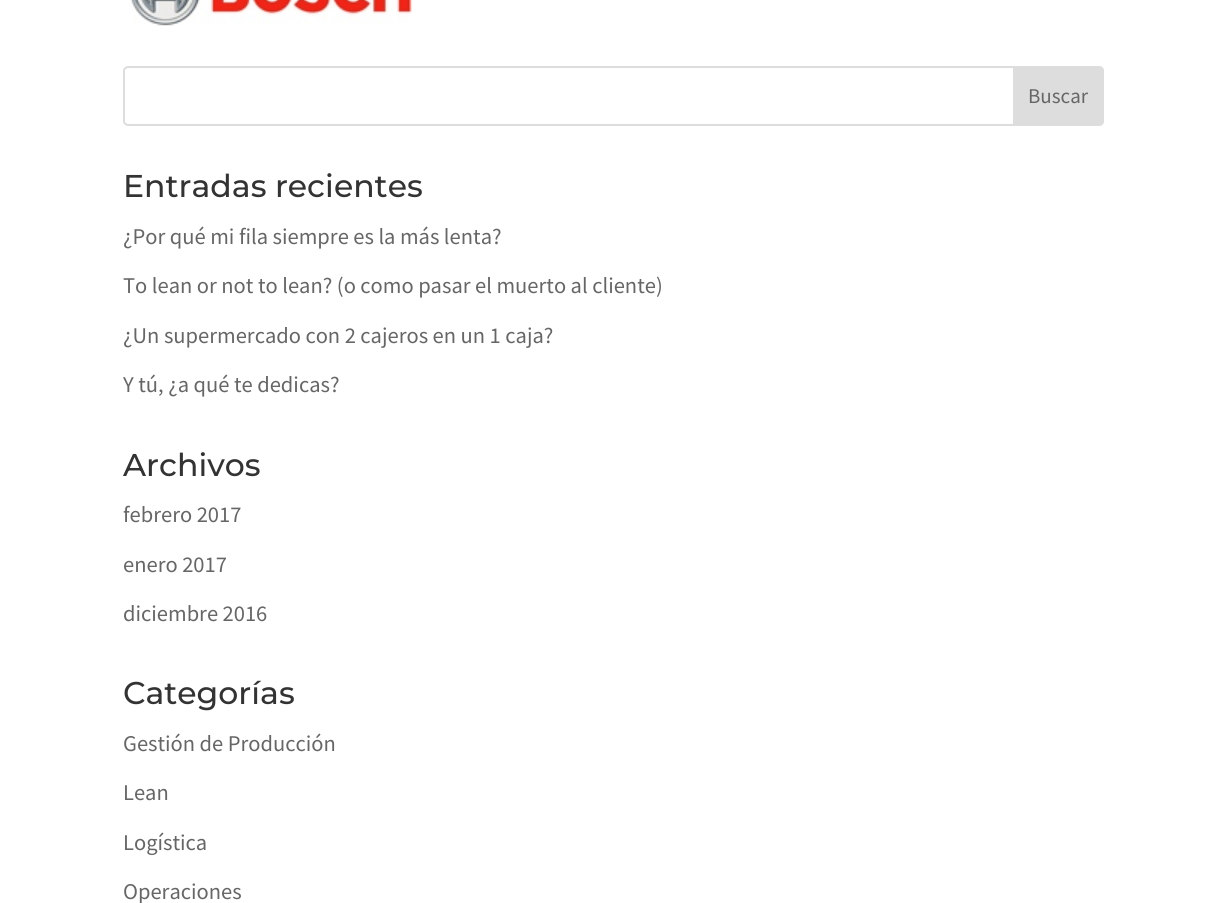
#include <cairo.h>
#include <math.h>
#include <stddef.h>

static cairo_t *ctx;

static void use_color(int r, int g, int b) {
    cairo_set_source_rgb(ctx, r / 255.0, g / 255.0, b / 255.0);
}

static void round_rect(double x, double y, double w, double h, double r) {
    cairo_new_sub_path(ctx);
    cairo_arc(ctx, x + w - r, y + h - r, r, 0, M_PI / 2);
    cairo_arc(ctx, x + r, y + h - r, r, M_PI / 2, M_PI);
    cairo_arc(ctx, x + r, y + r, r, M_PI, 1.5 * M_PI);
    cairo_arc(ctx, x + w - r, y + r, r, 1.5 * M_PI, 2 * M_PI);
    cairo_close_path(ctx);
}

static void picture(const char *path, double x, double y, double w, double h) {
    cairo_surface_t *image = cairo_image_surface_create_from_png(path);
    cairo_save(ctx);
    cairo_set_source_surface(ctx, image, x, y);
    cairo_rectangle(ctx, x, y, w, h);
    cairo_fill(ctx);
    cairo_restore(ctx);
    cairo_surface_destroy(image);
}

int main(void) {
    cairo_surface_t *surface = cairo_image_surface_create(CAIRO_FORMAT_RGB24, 1226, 903);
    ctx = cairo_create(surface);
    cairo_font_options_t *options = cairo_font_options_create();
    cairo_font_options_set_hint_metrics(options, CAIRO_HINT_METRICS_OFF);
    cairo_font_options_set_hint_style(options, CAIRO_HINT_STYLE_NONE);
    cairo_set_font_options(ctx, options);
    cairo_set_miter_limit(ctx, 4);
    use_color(255, 255, 255);
    cairo_paint(ctx);
    picture("img1.png", 129, 0, 284, 26);
    round_rect(124, 67, 979, 58, 4);
    use_color(221, 221, 221);
    cairo_stroke(ctx);
    cairo_new_path(ctx);
    cairo_move_to(ctx, 1014, 67);
    cairo_line_to(ctx, 1099, 67);
    cairo_curve_to(ctx, 1101, 67, 1103, 69, 1103, 71);
    cairo_line_to(ctx, 1103, 121);
    cairo_curve_to(ctx, 1103, 123, 1101, 125, 1099, 125);
    cairo_line_to(ctx, 1014, 125);
    cairo_close_path(ctx);
    cairo_fill_preserve(ctx);
    cairo_stroke(ctx);
    cairo_select_font_face(ctx, "Source Sans Pro", CAIRO_FONT_SLANT_NORMAL, CAIRO_FONT_WEIGHT_NORMAL);
    cairo_set_font_size(ctx, 21);
    use_color(102, 102, 102);
    cairo_move_to(ctx, 1028, 103);
    cairo_show_text(ctx, "Buscar");
    cairo_select_font_face(ctx, "Montserrat Medium", CAIRO_FONT_SLANT_NORMAL, CAIRO_FONT_WEIGHT_NORMAL);
    cairo_set_font_size(ctx, 31.5);
    use_color(51, 51, 51);
    cairo_move_to(ctx, 123, 197);
    cairo_show_text(ctx, "Entradas recientes");
    cairo_select_font_face(ctx, "Source Sans Pro", CAIRO_FONT_SLANT_NORMAL, CAIRO_FONT_WEIGHT_NORMAL);
    cairo_set_font_size(ctx, 22.5);
    use_color(102, 102, 102);
    cairo_move_to(ctx, 123, 244);
    cairo_show_text(ctx, "¿Por qué mi fila siempre es la más lenta?");
    cairo_move_to(ctx, 123, 293);
    cairo_show_text(ctx, "To lean or not to lean? (o como pasar el muerto al cliente)");
    cairo_move_to(ctx, 123, 343);
    cairo_show_text(ctx, "¿Un supermercado con 2 cajeros en un 1 caja?");
    cairo_move_to(ctx, 123, 392);
    cairo_show_text(ctx, "Y tú, ¿a qué te dedicas?");
    cairo_select_font_face(ctx, "Montserrat Medium", CAIRO_FONT_SLANT_NORMAL, CAIRO_FONT_WEIGHT_NORMAL);
    cairo_set_font_size(ctx, 31.5);
    use_color(51, 51, 51);
    cairo_move_to(ctx, 123, 476);
    cairo_show_text(ctx, "Archivos");
    cairo_select_font_face(ctx, "Source Sans Pro", CAIRO_FONT_SLANT_NORMAL, CAIRO_FONT_WEIGHT_NORMAL);
    cairo_set_font_size(ctx, 22.5);
    use_color(102, 102, 102);
    cairo_move_to(ctx, 123, 522);
    cairo_show_text(ctx, "febrero 2017");
    cairo_move_to(ctx, 123, 572);
    cairo_show_text(ctx, "enero 2017");
    cairo_move_to(ctx, 123, 621);
    cairo_show_text(ctx, "diciembre 2016");
    cairo_select_font_face(ctx, "Montserrat Medium", CAIRO_FONT_SLANT_NORMAL, CAIRO_FONT_WEIGHT_NORMAL);
    cairo_set_font_size(ctx, 31.5);
    use_color(51, 51, 51);
    cairo_move_to(ctx, 123, 704);
    cairo_show_text(ctx, "Categorías");
    cairo_select_font_face(ctx, "Source Sans Pro", CAIRO_FONT_SLANT_NORMAL, CAIRO_FONT_WEIGHT_NORMAL);
    cairo_set_font_size(ctx, 22.5);
    use_color(102, 102, 102);
    cairo_move_to(ctx, 123, 751);
    cairo_show_text(ctx, "Gestión de Producción");
    cairo_move_to(ctx, 123, 800);
    cairo_show_text(ctx, "Lean");
    cairo_move_to(ctx, 123, 850);
    cairo_show_text(ctx, "Logística");
    cairo_move_to(ctx, 123, 899);
    cairo_show_text(ctx, "Operaciones");
    cairo_surface_write_to_png(surface, "result.png");
    cairo_font_options_destroy(options);
    cairo_destroy(ctx);
    cairo_surface_destroy(surface);
    return 0;
}
